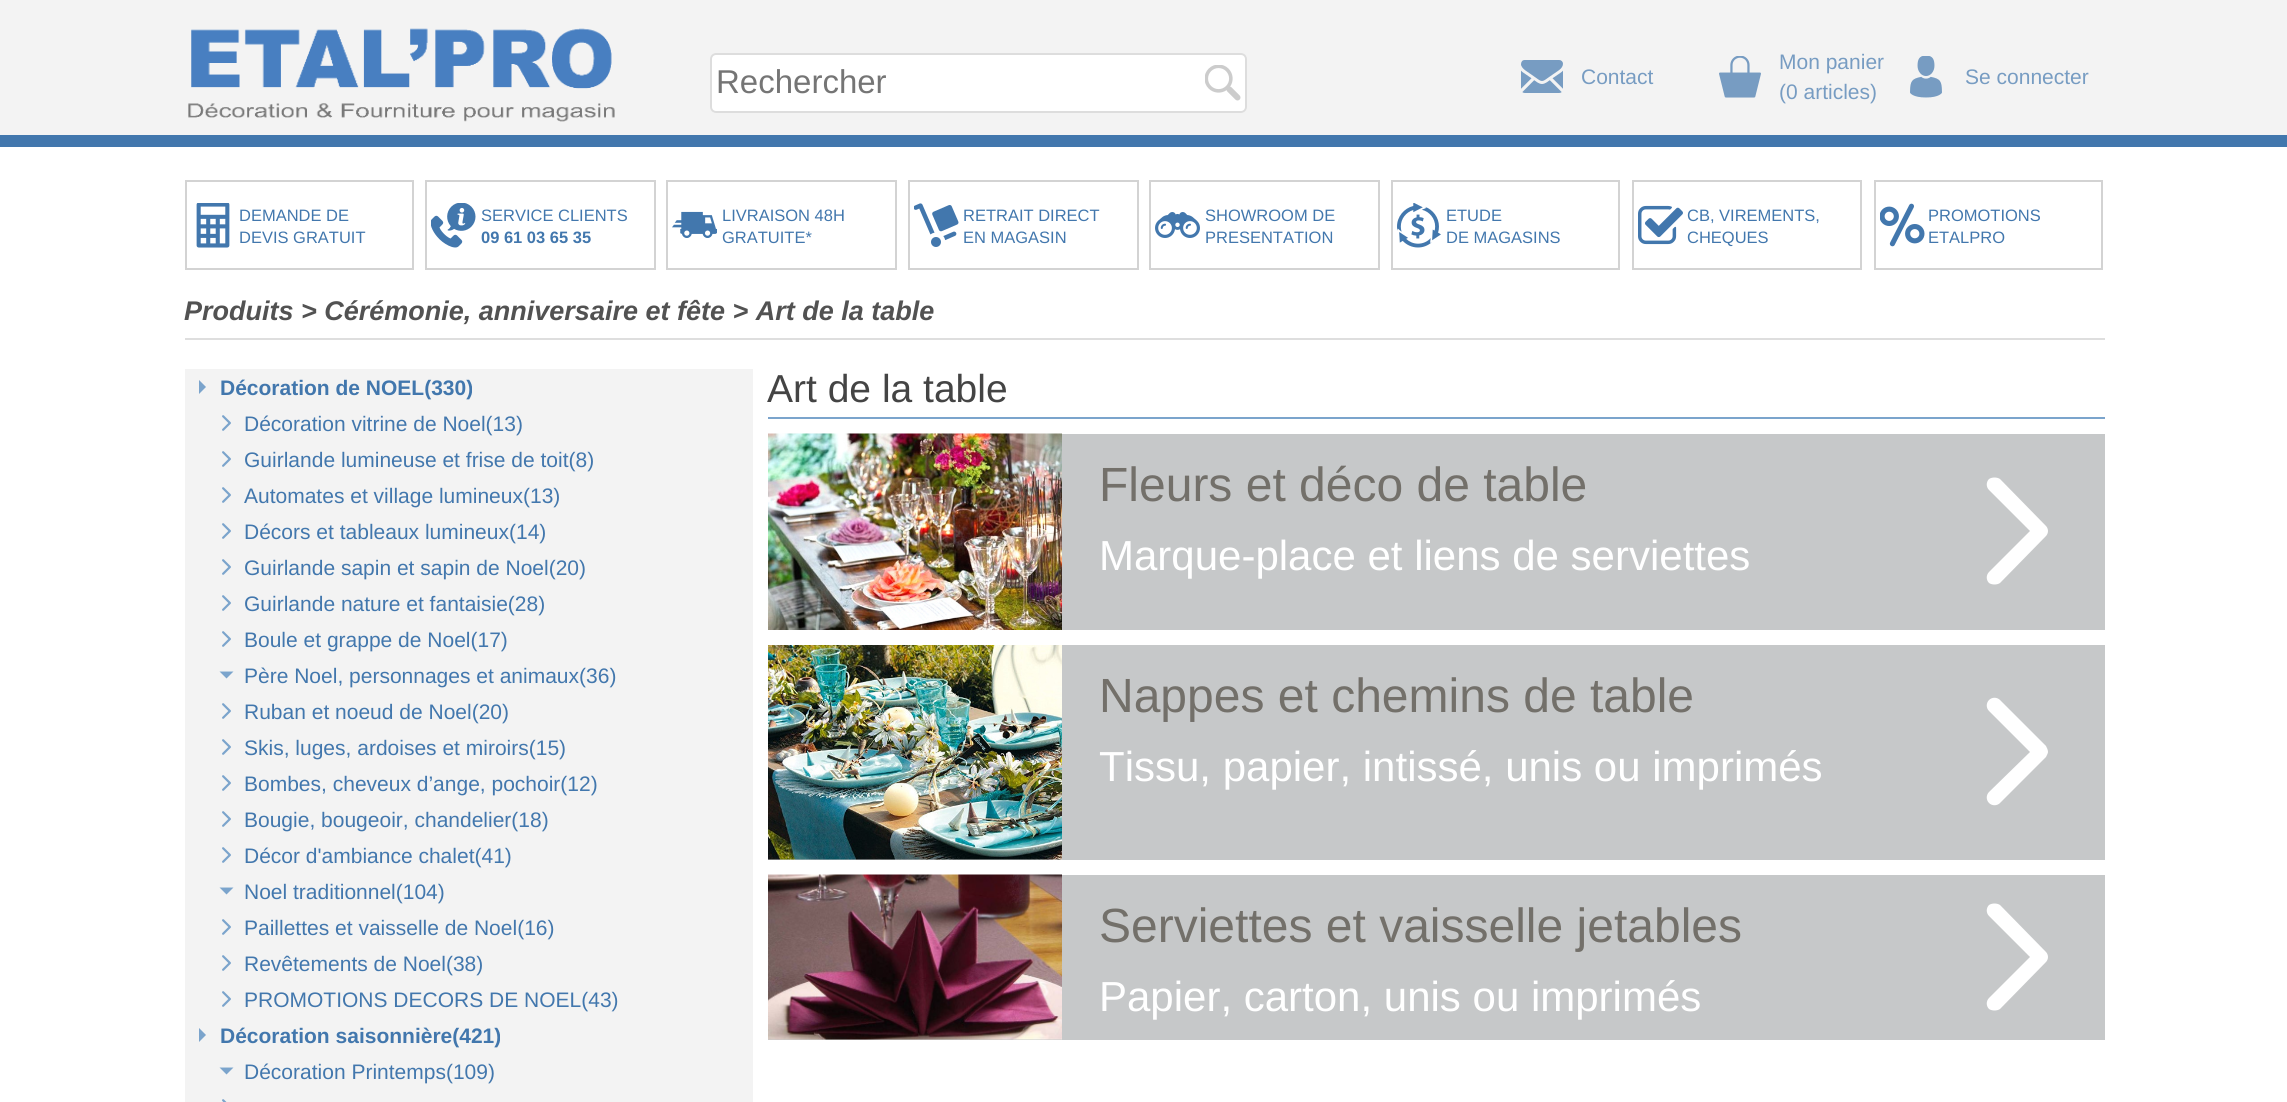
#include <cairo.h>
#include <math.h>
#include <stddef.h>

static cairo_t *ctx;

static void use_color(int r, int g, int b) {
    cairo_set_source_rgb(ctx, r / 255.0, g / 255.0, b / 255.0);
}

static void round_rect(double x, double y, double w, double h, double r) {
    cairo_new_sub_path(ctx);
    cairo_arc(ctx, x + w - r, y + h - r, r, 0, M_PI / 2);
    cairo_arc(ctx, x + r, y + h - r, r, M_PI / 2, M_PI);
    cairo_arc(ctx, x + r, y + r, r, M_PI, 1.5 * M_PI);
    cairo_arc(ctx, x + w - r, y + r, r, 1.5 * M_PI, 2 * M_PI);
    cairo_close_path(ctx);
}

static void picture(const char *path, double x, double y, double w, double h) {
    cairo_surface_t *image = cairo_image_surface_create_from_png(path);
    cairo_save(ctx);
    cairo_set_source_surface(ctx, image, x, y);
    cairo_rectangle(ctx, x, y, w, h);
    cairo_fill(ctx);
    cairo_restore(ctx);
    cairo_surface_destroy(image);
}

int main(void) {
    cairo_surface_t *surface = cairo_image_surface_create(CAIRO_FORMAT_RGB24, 2287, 1102);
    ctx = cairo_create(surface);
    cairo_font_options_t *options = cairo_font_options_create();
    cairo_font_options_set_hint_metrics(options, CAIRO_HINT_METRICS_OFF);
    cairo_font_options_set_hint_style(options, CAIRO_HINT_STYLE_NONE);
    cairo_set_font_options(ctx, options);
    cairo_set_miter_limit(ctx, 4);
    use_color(255, 255, 255);
    cairo_paint(ctx);
    use_color(243, 243, 243);
    cairo_rectangle(ctx, 0, 0, 2287, 135);
    cairo_fill(ctx);
    use_color(66, 119, 173);
    cairo_rectangle(ctx, 0, 135, 2287, 12);
    cairo_fill(ctx);
    picture("img1.png", 188, 28, 427, 94);
    use_color(255, 255, 255);
    round_rect(710, 53, 537, 60, 6);
    cairo_fill(ctx);
    picture("img2.png", 1205, 65, 36, 36);
    round_rect(711, 54, 535, 58, 5);
    use_color(221, 221, 221);
    cairo_stroke(ctx);
    cairo_select_font_face(ctx, "Liberation Sans", CAIRO_FONT_SLANT_NORMAL, CAIRO_FONT_WEIGHT_NORMAL);
    cairo_set_font_size(ctx, 33);
    use_color(117, 117, 117);
    cairo_move_to(ctx, 716, 93);
    cairo_show_text(ctx, "Rechercher");
    picture("img3.png", 1521, 60, 42, 33);
    cairo_set_font_size(ctx, 21);
    use_color(119, 156, 194);
    cairo_move_to(ctx, 1581, 84);
    cairo_show_text(ctx, "Contact");
    picture("img4.png", 1719, 56, 42, 42);
    cairo_move_to(ctx, 1779, 69);
    cairo_show_text(ctx, "Mon panier");
    cairo_move_to(ctx, 1779, 99);
    cairo_show_text(ctx, "(0 articles)");
    picture("img5.png", 1910, 56, 32, 42);
    cairo_move_to(ctx, 1965, 84);
    cairo_show_text(ctx, "Se connecter");
    picture("img6.png", 196, 203, 34, 45);
    cairo_rectangle(ctx, 186, 181, 227, 88);
    use_color(211, 211, 211);
    cairo_stroke(ctx);
    cairo_set_font_size(ctx, 16.5);
    use_color(66, 119, 173);
    cairo_move_to(ctx, 239, 221);
    cairo_show_text(ctx, "DEMANDE DE");
    cairo_move_to(ctx, 239, 243);
    cairo_show_text(ctx, "DEVIS GRATUIT");
    picture("img7.png", 431, 203, 45, 45);
    cairo_rectangle(ctx, 426, 181, 229, 88);
    use_color(211, 211, 211);
    cairo_stroke(ctx);
    use_color(66, 119, 173);
    cairo_move_to(ctx, 481, 221);
    cairo_show_text(ctx, "SERVICE CLIENTS");
    cairo_select_font_face(ctx, "Liberation Sans", CAIRO_FONT_SLANT_NORMAL, CAIRO_FONT_WEIGHT_BOLD);
    cairo_move_to(ctx, 481, 243);
    cairo_show_text(ctx, "09 61 03 65 35");
    picture("img8.png", 672, 211, 45, 27);
    cairo_rectangle(ctx, 667, 181, 229, 88);
    use_color(211, 211, 211);
    cairo_stroke(ctx);
    cairo_select_font_face(ctx, "Liberation Sans", CAIRO_FONT_SLANT_NORMAL, CAIRO_FONT_WEIGHT_NORMAL);
    use_color(66, 119, 173);
    cairo_move_to(ctx, 722, 221);
    cairo_show_text(ctx, "LIVRAISON 48H");
    cairo_move_to(ctx, 722, 243);
    cairo_show_text(ctx, "GRATUITE*");
    picture("img9.png", 914, 203, 45, 44);
    cairo_rectangle(ctx, 909, 181, 229, 88);
    use_color(211, 211, 211);
    cairo_stroke(ctx);
    use_color(66, 119, 173);
    cairo_move_to(ctx, 963, 221);
    cairo_show_text(ctx, "RETRAIT DIRECT");
    cairo_move_to(ctx, 963, 243);
    cairo_show_text(ctx, "EN MAGASIN");
    picture("img10.png", 1155, 212, 45, 26);
    cairo_rectangle(ctx, 1150, 181, 229, 88);
    use_color(211, 211, 211);
    cairo_stroke(ctx);
    use_color(66, 119, 173);
    cairo_move_to(ctx, 1205, 221);
    cairo_show_text(ctx, "SHOWROOM DE");
    cairo_move_to(ctx, 1205, 243);
    cairo_show_text(ctx, "PRESENTATION");
    picture("img11.png", 1397, 203, 44, 45);
    cairo_rectangle(ctx, 1392, 181, 227, 88);
    use_color(211, 211, 211);
    cairo_stroke(ctx);
    use_color(66, 119, 173);
    cairo_move_to(ctx, 1446, 221);
    cairo_show_text(ctx, "ETUDE");
    cairo_move_to(ctx, 1446, 243);
    cairo_show_text(ctx, "DE MAGASINS");
    picture("img12.png", 1638, 205, 45, 40);
    cairo_rectangle(ctx, 1633, 181, 228, 88);
    use_color(211, 211, 211);
    cairo_stroke(ctx);
    use_color(66, 119, 173);
    cairo_move_to(ctx, 1687, 221);
    cairo_show_text(ctx, "CB, VIREMENTS,");
    cairo_move_to(ctx, 1687, 243);
    cairo_show_text(ctx, "CHEQUES");
    picture("img13.png", 1880, 203, 45, 44);
    cairo_rectangle(ctx, 1875, 181, 227, 88);
    use_color(211, 211, 211);
    cairo_stroke(ctx);
    use_color(66, 119, 173);
    cairo_move_to(ctx, 1928, 221);
    cairo_show_text(ctx, "PROMOTIONS");
    cairo_move_to(ctx, 1928, 243);
    cairo_show_text(ctx, "ETALPRO");
    use_color(222, 222, 222);
    cairo_rectangle(ctx, 185, 338, 1920, 2);
    cairo_fill(ctx);
    cairo_select_font_face(ctx, "Liberation Sans", CAIRO_FONT_SLANT_ITALIC, CAIRO_FONT_WEIGHT_BOLD);
    cairo_set_font_size(ctx, 27);
    use_color(82, 82, 82);
    cairo_move_to(ctx, 184, 320);
    cairo_show_text(ctx, "Produits > Cérémonie, anniversaire et fête > Art de la table");
    use_color(243, 243, 243);
    cairo_rectangle(ctx, 185, 369, 568, 733);
    cairo_fill(ctx);
    use_color(123, 164, 204);
    cairo_new_path(ctx);
    cairo_move_to(ctx, 199, 394);
    cairo_line_to(ctx, 199, 380);
    cairo_line_to(ctx, 206, 387);
    cairo_close_path(ctx);
    cairo_fill(ctx);
    cairo_select_font_face(ctx, "Liberation Sans", CAIRO_FONT_SLANT_NORMAL, CAIRO_FONT_WEIGHT_BOLD);
    cairo_set_font_size(ctx, 21);
    use_color(66, 119, 173);
    cairo_move_to(ctx, 220, 395);
    cairo_show_text(ctx, "Décoration de NOEL(330)");
    picture("img14.png", 222, 415, 9, 16);
    cairo_select_font_face(ctx, "Liberation Sans", CAIRO_FONT_SLANT_NORMAL, CAIRO_FONT_WEIGHT_NORMAL);
    cairo_move_to(ctx, 244, 431);
    cairo_show_text(ctx, "Décoration vitrine de Noel(13)");
    picture("img14.png", 222, 451, 9, 16);
    cairo_move_to(ctx, 244, 467);
    cairo_show_text(ctx, "Guirlande lumineuse et frise de toit(8)");
    picture("img14.png", 222, 487, 9, 16);
    cairo_move_to(ctx, 244, 503);
    cairo_show_text(ctx, "Automates et village lumineux(13)");
    picture("img14.png", 222, 523, 9, 16);
    cairo_move_to(ctx, 244, 539);
    cairo_show_text(ctx, "Décors et tableaux lumineux(14)");
    picture("img14.png", 222, 559, 9, 16);
    cairo_move_to(ctx, 244, 575);
    cairo_show_text(ctx, "Guirlande sapin et sapin de Noel(20)");
    picture("img14.png", 222, 595, 9, 16);
    cairo_move_to(ctx, 244, 611);
    cairo_show_text(ctx, "Guirlande nature et fantaisie(28)");
    picture("img14.png", 222, 631, 9, 16);
    cairo_move_to(ctx, 244, 647);
    cairo_show_text(ctx, "Boule et grappe de Noel(17)");
    use_color(123, 164, 204);
    cairo_new_path(ctx);
    cairo_move_to(ctx, 219.5, 671.5);
    cairo_line_to(ctx, 233.5, 671.5);
    cairo_line_to(ctx, 226.5, 678.5);
    cairo_close_path(ctx);
    cairo_fill(ctx);
    use_color(66, 119, 173);
    cairo_move_to(ctx, 244, 683);
    cairo_show_text(ctx, "Père Noel, personnages et animaux(36)");
    picture("img14.png", 222, 703, 9, 16);
    cairo_move_to(ctx, 244, 719);
    cairo_show_text(ctx, "Ruban et noeud de Noel(20)");
    picture("img14.png", 222, 739, 9, 16);
    cairo_move_to(ctx, 244, 755);
    cairo_show_text(ctx, "Skis, luges, ardoises et miroirs(15)");
    picture("img14.png", 222, 775, 9, 16);
    cairo_move_to(ctx, 244, 791);
    cairo_show_text(ctx, "Bombes, cheveux d’ange, pochoir(12)");
    picture("img14.png", 222, 811, 9, 16);
    cairo_move_to(ctx, 244, 827);
    cairo_show_text(ctx, "Bougie, bougeoir, chandelier(18)");
    picture("img14.png", 222, 847, 9, 16);
    cairo_move_to(ctx, 244, 863);
    cairo_show_text(ctx, "Décor d'ambiance chalet(41)");
    use_color(123, 164, 204);
    cairo_new_path(ctx);
    cairo_move_to(ctx, 219.5, 887.5);
    cairo_line_to(ctx, 233.5, 887.5);
    cairo_line_to(ctx, 226.5, 894.5);
    cairo_close_path(ctx);
    cairo_fill(ctx);
    use_color(66, 119, 173);
    cairo_move_to(ctx, 244, 899);
    cairo_show_text(ctx, "Noel traditionnel(104)");
    picture("img14.png", 222, 919, 9, 16);
    cairo_move_to(ctx, 244, 935);
    cairo_show_text(ctx, "Paillettes et vaisselle de Noel(16)");
    picture("img14.png", 222, 955, 9, 16);
    cairo_move_to(ctx, 244, 971);
    cairo_show_text(ctx, "Revêtements de Noel(38)");
    picture("img14.png", 222, 991, 9, 16);
    cairo_move_to(ctx, 244, 1007);
    cairo_show_text(ctx, "PROMOTIONS DECORS DE NOEL(43)");
    use_color(123, 164, 204);
    cairo_new_path(ctx);
    cairo_move_to(ctx, 199, 1042);
    cairo_line_to(ctx, 199, 1028);
    cairo_line_to(ctx, 206, 1035);
    cairo_close_path(ctx);
    cairo_fill(ctx);
    cairo_select_font_face(ctx, "Liberation Sans", CAIRO_FONT_SLANT_NORMAL, CAIRO_FONT_WEIGHT_BOLD);
    use_color(66, 119, 173);
    cairo_move_to(ctx, 220, 1043);
    cairo_show_text(ctx, "Décoration saisonnière(421)");
    use_color(123, 164, 204);
    cairo_new_path(ctx);
    cairo_move_to(ctx, 219.5, 1067.5);
    cairo_line_to(ctx, 233.5, 1067.5);
    cairo_line_to(ctx, 226.5, 1074.5);
    cairo_close_path(ctx);
    cairo_fill(ctx);
    cairo_select_font_face(ctx, "Liberation Sans", CAIRO_FONT_SLANT_NORMAL, CAIRO_FONT_WEIGHT_NORMAL);
    use_color(66, 119, 173);
    cairo_move_to(ctx, 244, 1079);
    cairo_show_text(ctx, "Décoration Printemps(109)");
    picture("img15.png", 222, 1099, 5, 3);
    use_color(123, 164, 204);
    cairo_rectangle(ctx, 768, 417, 1337, 2);
    cairo_fill(ctx);
    cairo_set_font_size(ctx, 39);
    use_color(68, 68, 68);
    cairo_move_to(ctx, 767, 402);
    cairo_show_text(ctx, "Art de la table");
    use_color(198, 200, 201);
    cairo_rectangle(ctx, 1062, 434, 1043, 196);
    cairo_fill(ctx);
    use_color(255, 255, 255);
    cairo_new_path(ctx);
    cairo_move_to(ctx, 2046, 536);
    cairo_line_to(ctx, 2000, 583);
    cairo_curve_to(ctx, 1997, 585, 1992, 585, 1989, 583);
    cairo_curve_to(ctx, 1986, 580, 1986, 575, 1989, 572);
    cairo_line_to(ctx, 2030, 531);
    cairo_line_to(ctx, 1989, 490);
    cairo_curve_to(ctx, 1986, 487, 1986, 482, 1989, 479);
    cairo_curve_to(ctx, 1992, 477, 1997, 477, 2000, 479);
    cairo_line_to(ctx, 2046, 526);
    cairo_curve_to(ctx, 2047, 527, 2048, 529, 2048, 531);
    cairo_curve_to(ctx, 2048, 533, 2047, 535, 2046, 536);
    cairo_close_path(ctx);
    cairo_fill(ctx);
    picture("img16.png", 768, 433, 294, 197);
    cairo_set_font_size(ctx, 48);
    use_color(115, 112, 106);
    cairo_move_to(ctx, 1099, 501);
    cairo_show_text(ctx, "Fleurs et déco de table");
    cairo_set_font_size(ctx, 42);
    use_color(255, 255, 255);
    cairo_move_to(ctx, 1099, 570);
    cairo_show_text(ctx, "Marque-place et liens de serviettes");
    use_color(198, 200, 201);
    cairo_rectangle(ctx, 768, 645, 1337, 215);
    cairo_fill(ctx);
    use_color(255, 255, 255);
    cairo_new_path(ctx);
    cairo_move_to(ctx, 2046, 757);
    cairo_line_to(ctx, 2000, 803);
    cairo_curve_to(ctx, 1997, 806, 1992, 806, 1989, 803);
    cairo_curve_to(ctx, 1986, 800, 1986, 795, 1989, 792);
    cairo_line_to(ctx, 2030, 752);
    cairo_line_to(ctx, 1989, 711);
    cairo_curve_to(ctx, 1986, 708, 1986, 703, 1989, 700);
    cairo_curve_to(ctx, 1992, 697, 1997, 697, 2000, 700);
    cairo_line_to(ctx, 2046, 746);
    cairo_curve_to(ctx, 2047, 748, 2048, 750, 2048, 752);
    cairo_curve_to(ctx, 2048, 753, 2047, 755, 2046, 757);
    cairo_close_path(ctx);
    cairo_fill(ctx);
    picture("img17.png", 768, 645, 294, 215);
    cairo_set_font_size(ctx, 48);
    use_color(115, 112, 106);
    cairo_move_to(ctx, 1099, 712);
    cairo_show_text(ctx, "Nappes et chemins de table");
    cairo_set_font_size(ctx, 42);
    use_color(255, 255, 255);
    cairo_move_to(ctx, 1099, 781);
    cairo_show_text(ctx, "Tissu, papier, intissé, unis ou imprimés");
    use_color(198, 200, 201);
    cairo_rectangle(ctx, 768, 875, 1337, 165);
    cairo_fill(ctx);
    use_color(255, 255, 255);
    cairo_new_path(ctx);
    cairo_move_to(ctx, 2046, 962);
    cairo_line_to(ctx, 2000, 1009);
    cairo_curve_to(ctx, 1997, 1011, 1992, 1011, 1989, 1009);
    cairo_curve_to(ctx, 1986, 1006, 1986, 1001, 1989, 998);
    cairo_line_to(ctx, 2030, 957);
    cairo_line_to(ctx, 1989, 916);
    cairo_curve_to(ctx, 1986, 913, 1986, 908, 1989, 905);
    cairo_curve_to(ctx, 1992, 903, 1997, 903, 2000, 905);
    cairo_line_to(ctx, 2046, 952);
    cairo_curve_to(ctx, 2047, 953, 2048, 955, 2048, 957);
    cairo_curve_to(ctx, 2048, 959, 2047, 961, 2046, 962);
    cairo_close_path(ctx);
    cairo_fill(ctx);
    picture("img18.png", 768, 874, 294, 166);
    cairo_set_font_size(ctx, 48);
    use_color(115, 112, 106);
    cairo_move_to(ctx, 1099, 942);
    cairo_show_text(ctx, "Serviettes et vaisselle jetables");
    cairo_set_font_size(ctx, 42);
    use_color(255, 255, 255);
    cairo_move_to(ctx, 1099, 1011);
    cairo_show_text(ctx, "Papier, carton, unis ou imprimés");
    cairo_surface_write_to_png(surface, "result.png");
    cairo_font_options_destroy(options);
    cairo_destroy(ctx);
    cairo_surface_destroy(surface);
    return 0;
}
